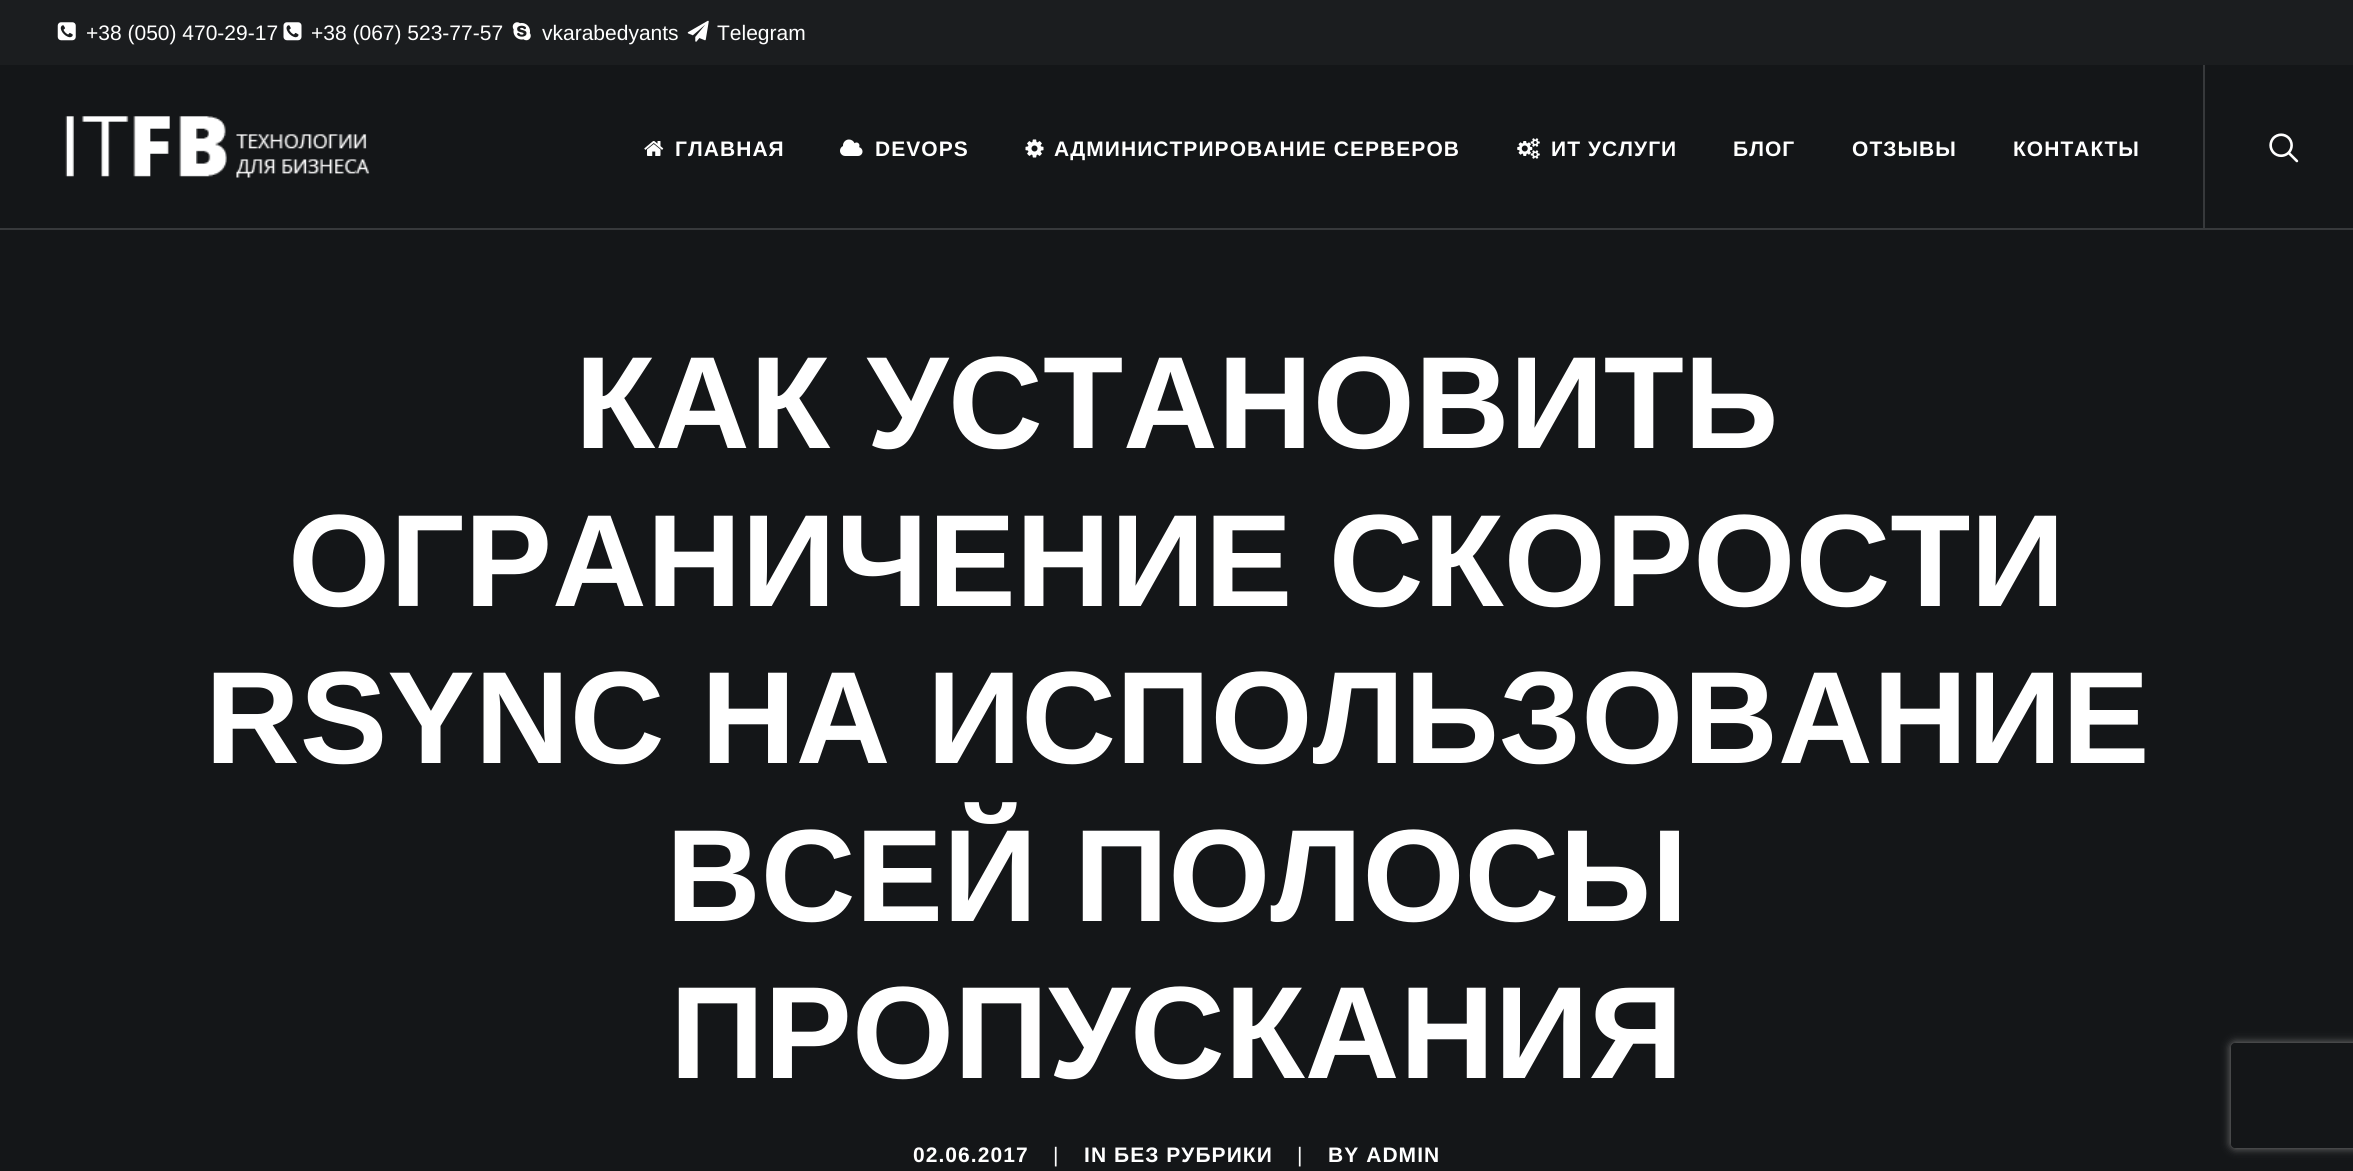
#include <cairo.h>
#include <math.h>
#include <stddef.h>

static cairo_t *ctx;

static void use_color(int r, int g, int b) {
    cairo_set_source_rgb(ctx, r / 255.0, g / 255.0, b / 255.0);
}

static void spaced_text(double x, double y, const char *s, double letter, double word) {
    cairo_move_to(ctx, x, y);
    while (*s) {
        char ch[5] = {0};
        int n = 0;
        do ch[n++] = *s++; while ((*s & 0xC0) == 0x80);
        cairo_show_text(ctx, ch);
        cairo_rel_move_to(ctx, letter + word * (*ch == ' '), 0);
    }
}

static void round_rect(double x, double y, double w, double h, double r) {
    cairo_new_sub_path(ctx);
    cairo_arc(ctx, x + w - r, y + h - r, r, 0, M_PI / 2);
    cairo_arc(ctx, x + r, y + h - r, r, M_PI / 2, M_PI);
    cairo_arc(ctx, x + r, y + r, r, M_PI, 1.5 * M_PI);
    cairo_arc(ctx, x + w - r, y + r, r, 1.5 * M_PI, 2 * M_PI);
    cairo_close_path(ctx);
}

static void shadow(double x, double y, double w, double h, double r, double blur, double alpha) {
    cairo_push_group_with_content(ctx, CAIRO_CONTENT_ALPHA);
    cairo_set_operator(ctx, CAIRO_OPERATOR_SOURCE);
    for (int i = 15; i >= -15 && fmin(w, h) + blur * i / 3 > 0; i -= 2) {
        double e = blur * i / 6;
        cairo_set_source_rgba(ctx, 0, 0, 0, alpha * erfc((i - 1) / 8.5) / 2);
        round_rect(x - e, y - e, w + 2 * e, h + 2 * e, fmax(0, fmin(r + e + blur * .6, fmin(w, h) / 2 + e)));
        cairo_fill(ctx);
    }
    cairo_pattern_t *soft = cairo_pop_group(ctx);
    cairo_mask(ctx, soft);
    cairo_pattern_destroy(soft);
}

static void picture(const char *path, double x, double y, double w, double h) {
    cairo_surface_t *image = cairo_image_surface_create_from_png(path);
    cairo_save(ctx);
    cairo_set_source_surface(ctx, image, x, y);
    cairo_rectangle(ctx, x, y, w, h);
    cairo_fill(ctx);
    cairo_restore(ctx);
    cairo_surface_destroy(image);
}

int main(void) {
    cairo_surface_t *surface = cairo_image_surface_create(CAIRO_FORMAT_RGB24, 2353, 1171);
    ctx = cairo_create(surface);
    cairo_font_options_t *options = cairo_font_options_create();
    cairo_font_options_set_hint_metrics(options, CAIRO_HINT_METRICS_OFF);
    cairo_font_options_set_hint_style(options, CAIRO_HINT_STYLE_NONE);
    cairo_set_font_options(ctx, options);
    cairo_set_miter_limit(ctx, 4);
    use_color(20, 22, 24);
    cairo_paint(ctx);
    use_color(27, 29, 31);
    cairo_rectangle(ctx, 0, 0, 2353, 65);
    cairo_fill(ctx);
    picture("img1.png", 57, 22, 19, 19);
    cairo_select_font_face(ctx, "Liberation Sans", CAIRO_FONT_SLANT_NORMAL, CAIRO_FONT_WEIGHT_NORMAL);
    cairo_set_font_size(ctx, 21);
    use_color(255, 255, 255);
    cairo_move_to(ctx, 86, 40);
    cairo_show_text(ctx, "+38 (050) 470-29-17");
    picture("img2.png", 283, 22, 19, 19);
    cairo_move_to(ctx, 311, 40);
    cairo_show_text(ctx, "+38 (067) 523-77-57");
    picture("img3.png", 512, 22, 19, 19);
    cairo_move_to(ctx, 542, 40);
    cairo_show_text(ctx, "vkarabedyants");
    picture("img4.png", 687, 20, 22, 22);
    cairo_move_to(ctx, 717, 40);
    cairo_show_text(ctx, "Telegram");
    use_color(55, 57, 59);
    cairo_rectangle(ctx, 0, 228, 2353, 2);
    cairo_fill(ctx);
    picture("img5.png", 65, 116, 305, 62);
    picture("img6.png", 644, 141, 20, 15);
    cairo_select_font_face(ctx, "Liberation Sans", CAIRO_FONT_SLANT_NORMAL, CAIRO_FONT_WEIGHT_BOLD);
    use_color(255, 255, 255);
    spaced_text(675, 156, "ГЛАВНАЯ", 1.05, 0);
    picture("img7.png", 840, 139, 23, 17);
    spaced_text(875, 156, "DEVOPS", 1.05, 0);
    picture("img8.png", 1025, 139, 19, 19);
    spaced_text(1054, 156, "АДМИНИСТРИРОВАНИЕ СЕРВЕРОВ", 1.05, 0);
    picture("img9.png", 1517, 138, 23, 21);
    spaced_text(1551, 156, "ИТ УСЛУГИ", 1.05, 0);
    spaced_text(1733, 156, "БЛОГ", 1.05, 0);
    spaced_text(1852, 156, "ОТЗЫВЫ", 1.05, 0);
    spaced_text(2013, 156, "КОНТАКТЫ", 1.05, 0);
    use_color(55, 57, 59);
    cairo_rectangle(ctx, 2203, 65, 2, 163);
    cairo_fill(ctx);
    picture("img10.png", 2269, 133, 30, 30);
    cairo_set_font_size(ctx, 131.25);
    use_color(255, 255, 255);
    cairo_move_to(ctx, 575, 448);
    cairo_show_text(ctx, "КАК УСТАНОВИТЬ");
    cairo_move_to(ctx, 288, 606);
    cairo_show_text(ctx, "ОГРАНИЧЕНИЕ СКОРОСТИ");
    cairo_move_to(ctx, 205, 763);
    cairo_show_text(ctx, "RSYNC НА ИСПОЛЬЗОВАНИЕ");
    cairo_move_to(ctx, 666, 921);
    cairo_show_text(ctx, "ВСЕЙ ПОЛОСЫ");
    cairo_move_to(ctx, 670, 1078);
    cairo_show_text(ctx, "ПРОПУСКАНИЯ");
    cairo_set_font_size(ctx, 21);
    spaced_text(913, 1162, "02.06.2017", 1.05, 0);
    cairo_select_font_face(ctx, "Liberation Sans", CAIRO_FONT_SLANT_NORMAL, CAIRO_FONT_WEIGHT_NORMAL);
    spaced_text(1053, 1162, "|", 1.05, 0);
    cairo_select_font_face(ctx, "Liberation Sans", CAIRO_FONT_SLANT_NORMAL, CAIRO_FONT_WEIGHT_BOLD);
    spaced_text(1084, 1162, "IN БЕЗ РУБРИКИ", 1.05, 0);
    cairo_select_font_face(ctx, "Liberation Sans", CAIRO_FONT_SLANT_NORMAL, CAIRO_FONT_WEIGHT_NORMAL);
    spaced_text(1297, 1162, "|", 1.05, 0);
    cairo_select_font_face(ctx, "Liberation Sans", CAIRO_FONT_SLANT_NORMAL, CAIRO_FONT_WEIGHT_BOLD);
    spaced_text(1328, 1162, "BY ADMIN", 1.05, 0);
    cairo_save(ctx);
    cairo_set_fill_rule(ctx, CAIRO_FILL_RULE_EVEN_ODD);
    cairo_new_path(ctx);
    cairo_move_to(ctx, 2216, 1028);
    cairo_line_to(ctx, 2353, 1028);
    cairo_line_to(ctx, 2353, 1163);
    cairo_line_to(ctx, 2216, 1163);
    cairo_close_path(ctx);
    cairo_move_to(ctx, 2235, 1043);
    cairo_line_to(ctx, 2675, 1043);
    cairo_curve_to(ctx, 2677, 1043, 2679, 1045, 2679, 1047);
    cairo_line_to(ctx, 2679, 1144);
    cairo_curve_to(ctx, 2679, 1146, 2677, 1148, 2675, 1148);
    cairo_line_to(ctx, 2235, 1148);
    cairo_curve_to(ctx, 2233, 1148, 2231, 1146, 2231, 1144);
    cairo_line_to(ctx, 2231, 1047);
    cairo_curve_to(ctx, 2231, 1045, 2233, 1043, 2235, 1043);
    cairo_close_path(ctx);
    cairo_clip(ctx);
    use_color(128, 128, 128);
    shadow(2231, 1043, 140, 105, 4, 4.5, 1);
    cairo_restore(ctx);
    cairo_surface_write_to_png(surface, "result.png");
    cairo_font_options_destroy(options);
    cairo_destroy(ctx);
    cairo_surface_destroy(surface);
    return 0;
}
